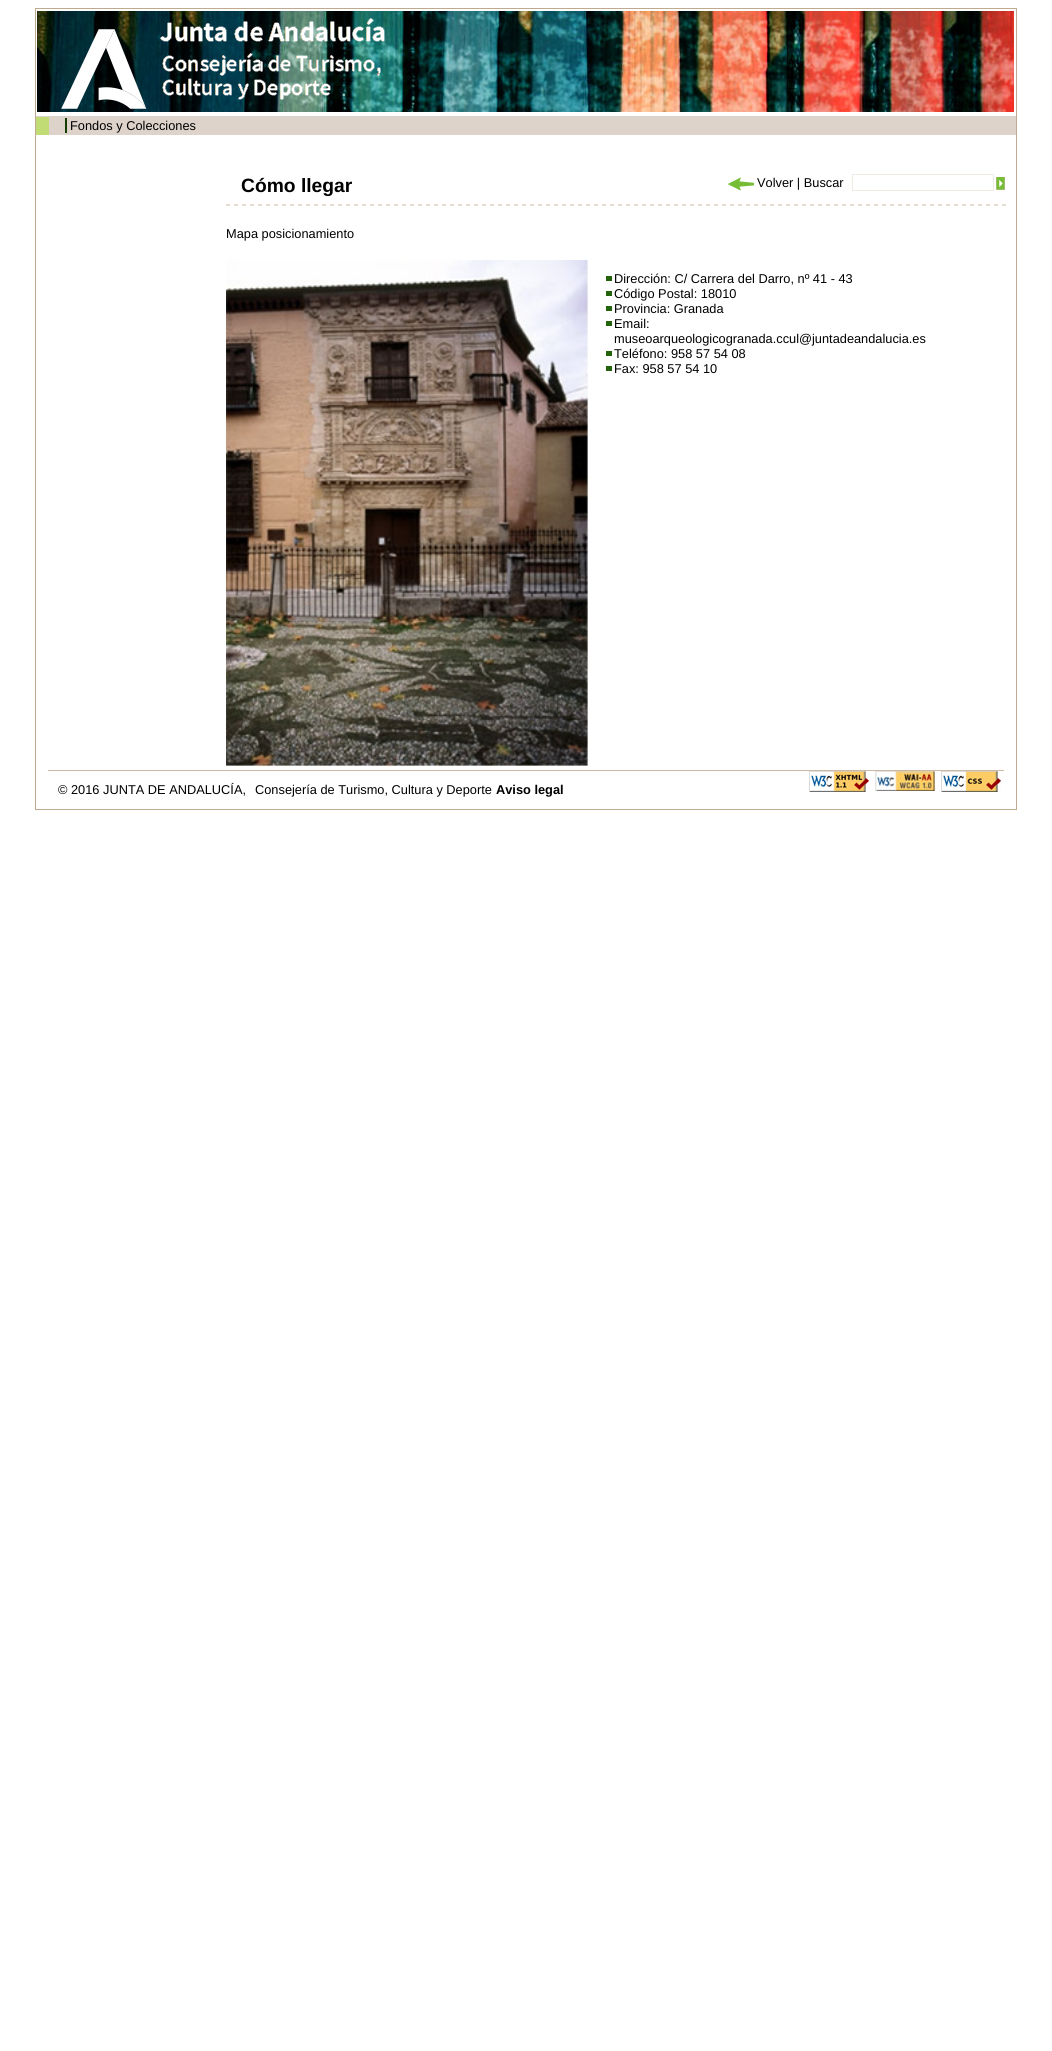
#include <cairo.h>
#include <math.h>
#include <stddef.h>

static cairo_t *ctx;

static void use_color(int r, int g, int b) {
    cairo_set_source_rgb(ctx, r / 255.0, g / 255.0, b / 255.0);
}

static void picture(const char *path, double x, double y, double w, double h) {
    cairo_surface_t *image = cairo_image_surface_create_from_png(path);
    cairo_save(ctx);
    cairo_set_source_surface(ctx, image, x, y);
    cairo_rectangle(ctx, x, y, w, h);
    cairo_fill(ctx);
    cairo_restore(ctx);
    cairo_surface_destroy(image);
}

int main(void) {
    cairo_surface_t *surface = cairo_image_surface_create(CAIRO_FORMAT_RGB24, 1052, 2051);
    ctx = cairo_create(surface);
    cairo_font_options_t *options = cairo_font_options_create();
    cairo_font_options_set_hint_metrics(options, CAIRO_HINT_METRICS_OFF);
    cairo_font_options_set_hint_style(options, CAIRO_HINT_STYLE_NONE);
    cairo_set_font_options(ctx, options);
    cairo_set_miter_limit(ctx, 4);
    use_color(255, 255, 255);
    cairo_paint(ctx);
    cairo_rectangle(ctx, 35.5, 8.5, 981, 801);
    use_color(191, 170, 143);
    cairo_set_line_width(ctx, 1);
    cairo_stroke(ctx);
    picture("img1.png", 37, 11, 977, 101);
    picture("img2.png", 61, 29, 86, 80);
    picture("img3.png", 160, 18, 225, 82);
    use_color(221, 211, 203);
    cairo_rectangle(ctx, 36, 116, 980, 19);
    cairo_fill(ctx);
    use_color(193, 219, 117);
    cairo_rectangle(ctx, 36, 117, 13, 18);
    cairo_fill(ctx);
    use_color(20, 61, 3);
    cairo_rectangle(ctx, 65, 118, 2, 15);
    cairo_fill(ctx);
    cairo_select_font_face(ctx, "Liberation Sans", CAIRO_FONT_SLANT_NORMAL, CAIRO_FONT_WEIGHT_NORMAL);
    cairo_set_font_size(ctx, 12.8);
    use_color(0, 0, 0);
    cairo_move_to(ctx, 70, 130);
    cairo_show_text(ctx, "Fondos y Colecciones");
    cairo_select_font_face(ctx, "Liberation Sans", CAIRO_FONT_SLANT_NORMAL, CAIRO_FONT_WEIGHT_BOLD);
    cairo_set_font_size(ctx, 19.25);
    cairo_move_to(ctx, 241, 192);
    cairo_show_text(ctx, "Cómo llegar");
    picture("img4.png", 727, 177, 27, 14);
    cairo_select_font_face(ctx, "Liberation Sans", CAIRO_FONT_SLANT_NORMAL, CAIRO_FONT_WEIGHT_NORMAL);
    cairo_set_font_size(ctx, 12.8);
    cairo_move_to(ctx, 757, 187);
    cairo_show_text(ctx, "Volver | Buscar");
    cairo_rectangle(ctx, 852.5, 174.5, 141, 16);
    use_color(239, 234, 228);
    cairo_stroke(ctx);
    picture("img5.png", 996, 177, 9, 13);
    picture("img6.png", 226, 204, 780, 2);
    use_color(0, 0, 0);
    cairo_move_to(ctx, 226, 238);
    cairo_show_text(ctx, "Mapa posicionamiento");
    picture("img7.png", 226, 260, 363, 507);
    use_color(35, 99, 11);
    cairo_rectangle(ctx, 606, 276, 6, 5);
    cairo_fill(ctx);
    use_color(0, 0, 0);
    cairo_move_to(ctx, 614, 283);
    cairo_show_text(ctx, "Dirección: C/ Carrera del Darro, nº 41 - 43");
    use_color(35, 99, 11);
    cairo_rectangle(ctx, 606, 291, 6, 5);
    cairo_fill(ctx);
    use_color(0, 0, 0);
    cairo_move_to(ctx, 614, 298);
    cairo_show_text(ctx, "Código Postal: 18010");
    use_color(35, 99, 11);
    cairo_rectangle(ctx, 606, 306, 6, 5);
    cairo_fill(ctx);
    use_color(0, 0, 0);
    cairo_move_to(ctx, 614, 313);
    cairo_show_text(ctx, "Provincia: Granada");
    use_color(35, 99, 11);
    cairo_rectangle(ctx, 606, 321, 6, 5);
    cairo_fill(ctx);
    use_color(0, 0, 0);
    cairo_move_to(ctx, 614, 328);
    cairo_show_text(ctx, "Email:");
    cairo_move_to(ctx, 614, 343);
    cairo_show_text(ctx, "museoarqueologicogranada.ccul@juntadeandalucia.es");
    use_color(35, 99, 11);
    cairo_rectangle(ctx, 606, 351, 6, 5);
    cairo_fill(ctx);
    use_color(0, 0, 0);
    cairo_move_to(ctx, 614, 358);
    cairo_show_text(ctx, "Teléfono: 958 57 54 08");
    use_color(35, 99, 11);
    cairo_rectangle(ctx, 606, 366, 6, 5);
    cairo_fill(ctx);
    use_color(0, 0, 0);
    cairo_move_to(ctx, 614, 373);
    cairo_show_text(ctx, "Fax: 958 57 54 10");
    use_color(203, 185, 165);
    cairo_rectangle(ctx, 48, 770, 956, 1);
    cairo_fill(ctx);
    use_color(0, 0, 0);
    cairo_move_to(ctx, 58, 794);
    cairo_show_text(ctx, "© 2016 JUNTA DE ANDALUCÍA,");
    cairo_move_to(ctx, 255, 794);
    cairo_show_text(ctx, "Consejería de Turismo, Cultura y Deporte");
    cairo_select_font_face(ctx, "Liberation Sans", CAIRO_FONT_SLANT_NORMAL, CAIRO_FONT_WEIGHT_BOLD);
    cairo_move_to(ctx, 496, 794);
    cairo_show_text(ctx, "Aviso legal");
    picture("img8.png", 809, 771, 60, 21);
    picture("img9.png", 875, 771, 60, 20);
    picture("img10.png", 941, 771, 60, 21);
    cairo_surface_write_to_png(surface, "result.png");
    cairo_font_options_destroy(options);
    cairo_destroy(ctx);
    cairo_surface_destroy(surface);
    return 0;
}
